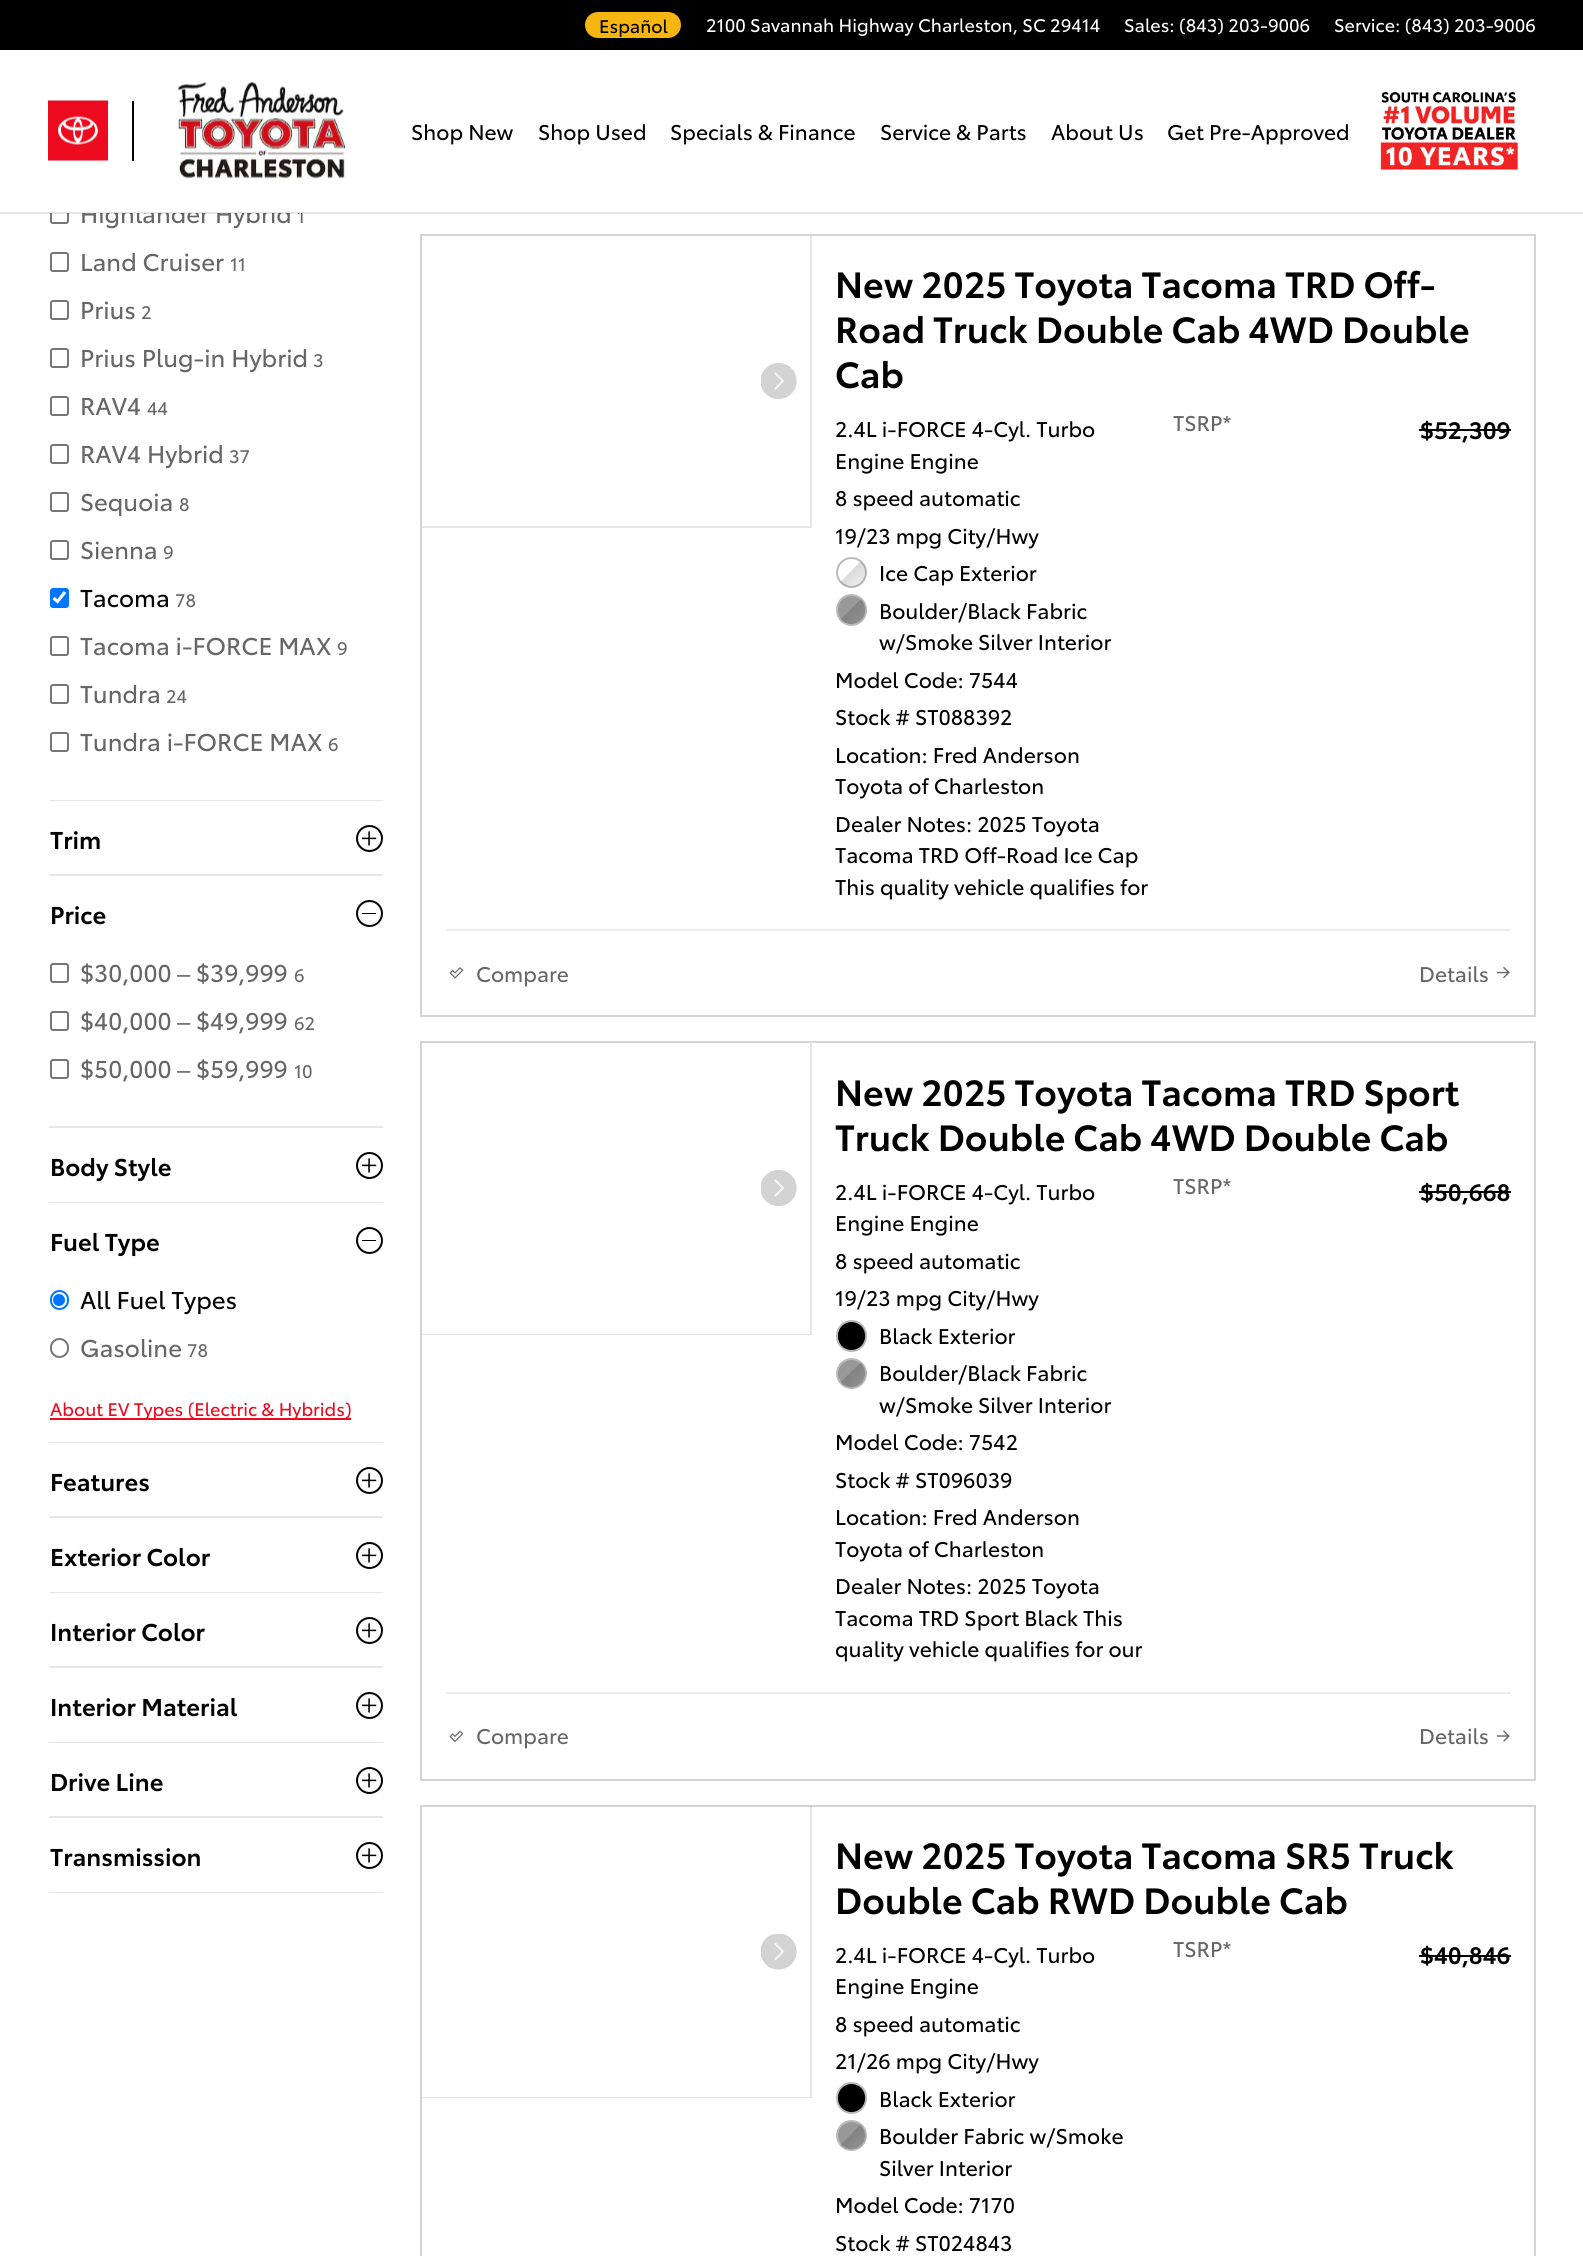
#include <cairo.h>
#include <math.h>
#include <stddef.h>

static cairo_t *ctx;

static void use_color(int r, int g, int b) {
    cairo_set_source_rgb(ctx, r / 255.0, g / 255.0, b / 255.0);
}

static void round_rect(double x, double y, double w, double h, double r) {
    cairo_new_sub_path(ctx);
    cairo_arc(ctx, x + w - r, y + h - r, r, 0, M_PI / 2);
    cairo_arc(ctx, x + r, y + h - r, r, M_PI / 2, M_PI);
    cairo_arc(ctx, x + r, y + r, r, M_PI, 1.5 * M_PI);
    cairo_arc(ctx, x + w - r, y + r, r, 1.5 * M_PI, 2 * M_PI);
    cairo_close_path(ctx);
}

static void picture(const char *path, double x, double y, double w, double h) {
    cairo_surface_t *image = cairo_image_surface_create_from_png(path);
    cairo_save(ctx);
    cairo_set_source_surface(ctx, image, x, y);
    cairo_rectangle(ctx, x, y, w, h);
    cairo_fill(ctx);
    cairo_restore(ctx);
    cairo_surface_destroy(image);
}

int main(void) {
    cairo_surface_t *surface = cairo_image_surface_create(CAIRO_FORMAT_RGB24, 1583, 2256);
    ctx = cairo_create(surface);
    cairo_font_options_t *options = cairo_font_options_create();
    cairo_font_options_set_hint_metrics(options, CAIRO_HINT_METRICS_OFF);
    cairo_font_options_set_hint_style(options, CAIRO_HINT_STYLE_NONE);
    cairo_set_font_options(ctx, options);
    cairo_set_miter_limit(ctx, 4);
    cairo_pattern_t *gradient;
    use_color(255, 255, 255);
    cairo_paint(ctx);
    round_rect(51, 205, 17, 18, 2);
    use_color(118, 118, 118);
    cairo_stroke(ctx);
    cairo_select_font_face(ctx, "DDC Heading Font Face", CAIRO_FONT_SLANT_NORMAL, CAIRO_FONT_WEIGHT_NORMAL);
    cairo_set_font_size(ctx, 24);
    use_color(102, 102, 102);
    cairo_move_to(ctx, 80, 223);
    cairo_show_text(ctx, "Highlander Hybrid");
    cairo_set_font_size(ctx, 18);
    cairo_move_to(ctx, 297, 223);
    cairo_show_text(ctx, "1");
    use_color(255, 255, 255);
    cairo_rectangle(ctx, 50, 204, 253, 9);
    cairo_fill(ctx);
    cairo_set_source_rgba(ctx, 0, 0, 0, 0.1);
    cairo_rectangle(ctx, 0, 212, 1583, 2);
    cairo_fill(ctx);
    use_color(0, 0, 0);
    cairo_rectangle(ctx, 0, 0, 1583, 50);
    cairo_fill(ctx);
    use_color(246, 181, 17);
    round_rect(586, 13, 94, 24, 12);
    cairo_fill_preserve(ctx);
    cairo_stroke(ctx);
    use_color(0, 0, 0);
    cairo_move_to(ctx, 599, 33);
    cairo_show_text(ctx, "Español");
    use_color(255, 255, 255);
    cairo_move_to(ctx, 706, 32);
    cairo_show_text(ctx, "2100 Savannah Highway Charleston, SC 29414");
    cairo_move_to(ctx, 1124, 32);
    cairo_show_text(ctx, "Sales: (843) 203-9006");
    cairo_move_to(ctx, 1334, 32);
    cairo_show_text(ctx, "Service: (843) 203-9006");
    use_color(0, 0, 0);
    cairo_rectangle(ctx, 132, 101, 2, 60);
    cairo_fill(ctx);
    picture("img1.png", 48, 100, 60, 61);
    picture("img2.png", 176, 82, 171, 98);
    cairo_set_font_size(ctx, 21);
    cairo_move_to(ctx, 411, 140);
    cairo_show_text(ctx, "Shop New");
    cairo_move_to(ctx, 538, 140);
    cairo_show_text(ctx, "Shop Used");
    cairo_move_to(ctx, 670, 140);
    cairo_show_text(ctx, "Specials & Finance");
    cairo_move_to(ctx, 880, 140);
    cairo_show_text(ctx, "Service & Parts");
    cairo_move_to(ctx, 1051, 140);
    cairo_show_text(ctx, "About Us");
    cairo_move_to(ctx, 1167, 140);
    cairo_show_text(ctx, "Get Pre-Approved");
    picture("img3.png", 1379, 92, 139, 78);
    use_color(230, 230, 230);
    cairo_new_path(ctx);
    cairo_move_to(ctx, 384, 801);
    cairo_line_to(ctx, 48, 801);
    cairo_line_to(ctx, 50, 800);
    cairo_line_to(ctx, 382, 800);
    cairo_close_path(ctx);
    cairo_fill(ctx);
    round_rect(51, 253, 17, 18, 2);
    use_color(118, 118, 118);
    cairo_stroke(ctx);
    cairo_set_font_size(ctx, 24);
    use_color(102, 102, 102);
    cairo_move_to(ctx, 80, 271);
    cairo_show_text(ctx, "Land Cruiser");
    cairo_set_font_size(ctx, 18);
    cairo_move_to(ctx, 230, 271);
    cairo_show_text(ctx, "11");
    round_rect(51, 301, 17, 18, 2);
    use_color(118, 118, 118);
    cairo_stroke(ctx);
    cairo_set_font_size(ctx, 24);
    use_color(102, 102, 102);
    cairo_move_to(ctx, 80, 319);
    cairo_show_text(ctx, "Prius");
    cairo_set_font_size(ctx, 18);
    cairo_move_to(ctx, 141, 319);
    cairo_show_text(ctx, "2");
    round_rect(51, 349, 17, 18, 2);
    use_color(118, 118, 118);
    cairo_stroke(ctx);
    cairo_set_font_size(ctx, 24);
    use_color(102, 102, 102);
    cairo_move_to(ctx, 80, 367);
    cairo_show_text(ctx, "Prius Plug-in Hybrid");
    cairo_set_font_size(ctx, 18);
    cairo_move_to(ctx, 313, 367);
    cairo_show_text(ctx, "3");
    round_rect(51, 397, 17, 18, 2);
    use_color(118, 118, 118);
    cairo_stroke(ctx);
    cairo_set_font_size(ctx, 24);
    use_color(102, 102, 102);
    cairo_move_to(ctx, 80, 415);
    cairo_show_text(ctx, "RAV4");
    cairo_set_font_size(ctx, 18);
    cairo_move_to(ctx, 147, 415);
    cairo_show_text(ctx, "44");
    round_rect(51, 445, 17, 18, 2);
    use_color(118, 118, 118);
    cairo_stroke(ctx);
    cairo_set_font_size(ctx, 24);
    use_color(102, 102, 102);
    cairo_move_to(ctx, 80, 463);
    cairo_show_text(ctx, "RAV4 Hybrid");
    cairo_set_font_size(ctx, 18);
    cairo_move_to(ctx, 229, 463);
    cairo_show_text(ctx, "37");
    round_rect(51, 493, 17, 18, 2);
    use_color(118, 118, 118);
    cairo_stroke(ctx);
    cairo_set_font_size(ctx, 24);
    use_color(102, 102, 102);
    cairo_move_to(ctx, 80, 511);
    cairo_show_text(ctx, "Sequoia");
    cairo_set_font_size(ctx, 18);
    cairo_move_to(ctx, 179, 511);
    cairo_show_text(ctx, "8");
    round_rect(51, 541, 17, 18, 2);
    use_color(118, 118, 118);
    cairo_stroke(ctx);
    cairo_set_font_size(ctx, 24);
    use_color(102, 102, 102);
    cairo_move_to(ctx, 80, 559);
    cairo_show_text(ctx, "Sienna");
    cairo_set_font_size(ctx, 18);
    cairo_move_to(ctx, 163, 559);
    cairo_show_text(ctx, "9");
    use_color(0, 117, 255);
    round_rect(50, 588, 19, 20, 3);
    cairo_fill(ctx);
    cairo_new_path(ctx);
    cairo_move_to(ctx, 53.5, 598);
    cairo_line_to(ctx, 57.5, 601.5);
    cairo_line_to(ctx, 65, 592);
    use_color(255, 255, 255);
    cairo_set_line_width(ctx, 3.1);
    cairo_stroke(ctx);
    cairo_set_font_size(ctx, 24);
    use_color(0, 0, 0);
    cairo_move_to(ctx, 80, 607);
    cairo_show_text(ctx, "Tacoma");
    cairo_set_font_size(ctx, 18);
    use_color(102, 102, 102);
    cairo_move_to(ctx, 175, 607);
    cairo_show_text(ctx, "78");
    round_rect(51, 637, 17, 18, 2);
    use_color(118, 118, 118);
    cairo_set_line_width(ctx, 2);
    cairo_stroke(ctx);
    cairo_set_font_size(ctx, 24);
    use_color(102, 102, 102);
    cairo_move_to(ctx, 80, 655);
    cairo_show_text(ctx, "Tacoma i-FORCE MAX");
    cairo_set_font_size(ctx, 18);
    cairo_move_to(ctx, 337, 655);
    cairo_show_text(ctx, "9");
    round_rect(51, 685, 17, 18, 2);
    use_color(118, 118, 118);
    cairo_stroke(ctx);
    cairo_set_font_size(ctx, 24);
    use_color(102, 102, 102);
    cairo_move_to(ctx, 80, 703);
    cairo_show_text(ctx, "Tundra");
    cairo_set_font_size(ctx, 18);
    cairo_move_to(ctx, 166, 703);
    cairo_show_text(ctx, "24");
    round_rect(51, 733, 17, 18, 2);
    use_color(118, 118, 118);
    cairo_stroke(ctx);
    cairo_set_font_size(ctx, 24);
    use_color(102, 102, 102);
    cairo_move_to(ctx, 80, 751);
    cairo_show_text(ctx, "Tundra i-FORCE MAX");
    cairo_set_font_size(ctx, 18);
    cairo_move_to(ctx, 328, 751);
    cairo_show_text(ctx, "6");
    use_color(230, 230, 230);
    cairo_new_path(ctx);
    cairo_move_to(ctx, 384, 876);
    cairo_line_to(ctx, 48, 876);
    cairo_line_to(ctx, 50, 874);
    cairo_line_to(ctx, 382, 874);
    cairo_close_path(ctx);
    cairo_fill(ctx);
    cairo_select_font_face(ctx, "DDC Heading Font Face SemiBold", CAIRO_FONT_SLANT_NORMAL, CAIRO_FONT_WEIGHT_NORMAL);
    cairo_set_font_size(ctx, 24);
    use_color(0, 0, 0);
    cairo_move_to(ctx, 50, 849);
    cairo_show_text(ctx, "Trim");
    cairo_new_path(ctx);
    cairo_arc(ctx, 369.5, 838.5, 12.5, 0, 2 * M_PI);
    cairo_stroke(ctx);
    picture("img4.png", 362, 831, 15, 15);
    use_color(230, 230, 230);
    cairo_new_path(ctx);
    cairo_move_to(ctx, 384, 1128);
    cairo_line_to(ctx, 48, 1128);
    cairo_line_to(ctx, 50, 1126);
    cairo_line_to(ctx, 382, 1126);
    cairo_close_path(ctx);
    cairo_fill(ctx);
    use_color(0, 0, 0);
    cairo_move_to(ctx, 50, 924);
    cairo_show_text(ctx, "Price");
    cairo_new_path(ctx);
    cairo_arc(ctx, 369.5, 913.5, 12.5, 0, 2 * M_PI);
    cairo_stroke(ctx);
    cairo_rectangle(ctx, 362, 913, 14, 1);
    cairo_fill(ctx);
    round_rect(51, 964, 17, 18, 2);
    use_color(118, 118, 118);
    cairo_stroke(ctx);
    cairo_select_font_face(ctx, "DDC Heading Font Face", CAIRO_FONT_SLANT_NORMAL, CAIRO_FONT_WEIGHT_NORMAL);
    use_color(102, 102, 102);
    cairo_move_to(ctx, 80, 982);
    cairo_show_text(ctx, "$30,000");
    cairo_select_font_face(ctx, "Liberation Sans", CAIRO_FONT_SLANT_NORMAL, CAIRO_FONT_WEIGHT_NORMAL);
    cairo_move_to(ctx, 177, 982);
    cairo_show_text(ctx, "–");
    cairo_select_font_face(ctx, "DDC Heading Font Face", CAIRO_FONT_SLANT_NORMAL, CAIRO_FONT_WEIGHT_NORMAL);
    cairo_move_to(ctx, 196, 982);
    cairo_show_text(ctx, "$39,999");
    cairo_set_font_size(ctx, 18);
    cairo_move_to(ctx, 294, 982);
    cairo_show_text(ctx, "6");
    round_rect(51, 1012, 17, 18, 2);
    use_color(118, 118, 118);
    cairo_stroke(ctx);
    cairo_set_font_size(ctx, 24);
    use_color(102, 102, 102);
    cairo_move_to(ctx, 80, 1030);
    cairo_show_text(ctx, "$40,000");
    cairo_select_font_face(ctx, "Liberation Sans", CAIRO_FONT_SLANT_NORMAL, CAIRO_FONT_WEIGHT_NORMAL);
    cairo_move_to(ctx, 177, 1030);
    cairo_show_text(ctx, "–");
    cairo_select_font_face(ctx, "DDC Heading Font Face", CAIRO_FONT_SLANT_NORMAL, CAIRO_FONT_WEIGHT_NORMAL);
    cairo_move_to(ctx, 196, 1030);
    cairo_show_text(ctx, "$49,999");
    cairo_set_font_size(ctx, 18);
    cairo_move_to(ctx, 294, 1030);
    cairo_show_text(ctx, "62");
    round_rect(51, 1060, 17, 18, 2);
    use_color(118, 118, 118);
    cairo_stroke(ctx);
    cairo_set_font_size(ctx, 24);
    use_color(102, 102, 102);
    cairo_move_to(ctx, 80, 1078);
    cairo_show_text(ctx, "$50,000");
    cairo_select_font_face(ctx, "Liberation Sans", CAIRO_FONT_SLANT_NORMAL, CAIRO_FONT_WEIGHT_NORMAL);
    cairo_move_to(ctx, 177, 1078);
    cairo_show_text(ctx, "–");
    cairo_select_font_face(ctx, "DDC Heading Font Face", CAIRO_FONT_SLANT_NORMAL, CAIRO_FONT_WEIGHT_NORMAL);
    cairo_move_to(ctx, 196, 1078);
    cairo_show_text(ctx, "$59,999");
    cairo_set_font_size(ctx, 18);
    cairo_move_to(ctx, 294, 1078);
    cairo_show_text(ctx, "10");
    use_color(230, 230, 230);
    cairo_new_path(ctx);
    cairo_move_to(ctx, 384, 1203);
    cairo_line_to(ctx, 48, 1203);
    cairo_line_to(ctx, 50, 1202);
    cairo_line_to(ctx, 382, 1202);
    cairo_close_path(ctx);
    cairo_fill(ctx);
    cairo_select_font_face(ctx, "DDC Heading Font Face SemiBold", CAIRO_FONT_SLANT_NORMAL, CAIRO_FONT_WEIGHT_NORMAL);
    cairo_set_font_size(ctx, 24);
    use_color(0, 0, 0);
    cairo_move_to(ctx, 50, 1176);
    cairo_show_text(ctx, "Body Style");
    cairo_new_path(ctx);
    cairo_arc(ctx, 369.5, 1165.5, 12.5, 0, 2 * M_PI);
    cairo_stroke(ctx);
    picture("img4.png", 362, 1158, 15, 15);
    use_color(230, 230, 230);
    cairo_new_path(ctx);
    cairo_move_to(ctx, 384, 1443);
    cairo_line_to(ctx, 48, 1443);
    cairo_line_to(ctx, 50, 1442);
    cairo_line_to(ctx, 382, 1442);
    cairo_close_path(ctx);
    cairo_fill(ctx);
    use_color(0, 0, 0);
    cairo_move_to(ctx, 50, 1251);
    cairo_show_text(ctx, "Fuel Type");
    cairo_new_path(ctx);
    cairo_arc(ctx, 369.5, 1240.5, 12.5, 0, 2 * M_PI);
    cairo_stroke(ctx);
    cairo_rectangle(ctx, 362, 1240, 14, 1);
    cairo_fill(ctx);
    round_rect(51, 1291, 17, 18, 8.5);
    use_color(0, 117, 255);
    cairo_stroke(ctx);
    cairo_arc(ctx, 59, 1300, 6, 0, 2 * M_PI);
    cairo_fill(ctx);
    cairo_select_font_face(ctx, "DDC Heading Font Face", CAIRO_FONT_SLANT_NORMAL, CAIRO_FONT_WEIGHT_NORMAL);
    use_color(0, 0, 0);
    cairo_move_to(ctx, 80, 1309);
    cairo_show_text(ctx, "All Fuel Types");
    round_rect(51, 1339, 17, 18, 8.5);
    use_color(118, 118, 118);
    cairo_stroke(ctx);
    use_color(102, 102, 102);
    cairo_move_to(ctx, 80, 1357);
    cairo_show_text(ctx, "Gasoline");
    cairo_set_font_size(ctx, 18);
    cairo_move_to(ctx, 187, 1357);
    cairo_show_text(ctx, "78");
    use_color(235, 10, 30);
    cairo_rectangle(ctx, 50, 1418, 301, 2);
    cairo_fill(ctx);
    cairo_move_to(ctx, 50, 1416);
    cairo_show_text(ctx, "About EV Types (Electric & Hybrids)");
    use_color(230, 230, 230);
    cairo_new_path(ctx);
    cairo_move_to(ctx, 384, 1518);
    cairo_line_to(ctx, 48, 1518);
    cairo_line_to(ctx, 50, 1516);
    cairo_line_to(ctx, 382, 1516);
    cairo_close_path(ctx);
    cairo_fill(ctx);
    cairo_select_font_face(ctx, "DDC Heading Font Face SemiBold", CAIRO_FONT_SLANT_NORMAL, CAIRO_FONT_WEIGHT_NORMAL);
    cairo_set_font_size(ctx, 24);
    use_color(0, 0, 0);
    cairo_move_to(ctx, 50, 1491);
    cairo_show_text(ctx, "Features");
    cairo_new_path(ctx);
    cairo_arc(ctx, 369.5, 1480.5, 12.5, 0, 2 * M_PI);
    cairo_stroke(ctx);
    picture("img4.png", 362, 1473, 15, 15);
    use_color(230, 230, 230);
    cairo_new_path(ctx);
    cairo_move_to(ctx, 384, 1593);
    cairo_line_to(ctx, 48, 1593);
    cairo_line_to(ctx, 50, 1592);
    cairo_line_to(ctx, 382, 1592);
    cairo_close_path(ctx);
    cairo_fill(ctx);
    use_color(0, 0, 0);
    cairo_move_to(ctx, 50, 1566);
    cairo_show_text(ctx, "Exterior Color");
    cairo_new_path(ctx);
    cairo_arc(ctx, 369.5, 1555.5, 12.5, 0, 2 * M_PI);
    cairo_stroke(ctx);
    picture("img4.png", 362, 1548, 15, 15);
    use_color(230, 230, 230);
    cairo_new_path(ctx);
    cairo_move_to(ctx, 384, 1668);
    cairo_line_to(ctx, 48, 1668);
    cairo_line_to(ctx, 50, 1666);
    cairo_line_to(ctx, 382, 1666);
    cairo_close_path(ctx);
    cairo_fill(ctx);
    use_color(0, 0, 0);
    cairo_move_to(ctx, 50, 1641);
    cairo_show_text(ctx, "Interior Color");
    cairo_new_path(ctx);
    cairo_arc(ctx, 369.5, 1630.5, 12.5, 0, 2 * M_PI);
    cairo_stroke(ctx);
    picture("img4.png", 362, 1623, 15, 15);
    use_color(230, 230, 230);
    cairo_new_path(ctx);
    cairo_move_to(ctx, 384, 1743);
    cairo_line_to(ctx, 48, 1743);
    cairo_line_to(ctx, 50, 1742);
    cairo_line_to(ctx, 382, 1742);
    cairo_close_path(ctx);
    cairo_fill(ctx);
    use_color(0, 0, 0);
    cairo_move_to(ctx, 50, 1716);
    cairo_show_text(ctx, "Interior Material");
    cairo_new_path(ctx);
    cairo_arc(ctx, 369.5, 1705.5, 12.5, 0, 2 * M_PI);
    cairo_stroke(ctx);
    picture("img4.png", 362, 1698, 15, 15);
    use_color(230, 230, 230);
    cairo_new_path(ctx);
    cairo_move_to(ctx, 384, 1818);
    cairo_line_to(ctx, 48, 1818);
    cairo_line_to(ctx, 50, 1816);
    cairo_line_to(ctx, 382, 1816);
    cairo_close_path(ctx);
    cairo_fill(ctx);
    use_color(0, 0, 0);
    cairo_move_to(ctx, 50, 1791);
    cairo_show_text(ctx, "Drive Line");
    cairo_new_path(ctx);
    cairo_arc(ctx, 369.5, 1780.5, 12.5, 0, 2 * M_PI);
    cairo_stroke(ctx);
    picture("img4.png", 362, 1773, 15, 15);
    use_color(230, 230, 230);
    cairo_new_path(ctx);
    cairo_move_to(ctx, 384, 1893);
    cairo_line_to(ctx, 48, 1893);
    cairo_line_to(ctx, 50, 1892);
    cairo_line_to(ctx, 382, 1892);
    cairo_close_path(ctx);
    cairo_fill(ctx);
    use_color(0, 0, 0);
    cairo_move_to(ctx, 50, 1866);
    cairo_show_text(ctx, "Transmission");
    cairo_new_path(ctx);
    cairo_arc(ctx, 369.5, 1855.5, 12.5, 0, 2 * M_PI);
    cairo_stroke(ctx);
    picture("img4.png", 362, 1848, 15, 15);
    cairo_rectangle(ctx, 421, 235, 1114, 781);
    use_color(211, 212, 212);
    cairo_stroke(ctx);
    use_color(230, 230, 230);
    cairo_new_path(ctx);
    cairo_move_to(ctx, 812, 236);
    cairo_line_to(ctx, 812, 528);
    cairo_line_to(ctx, 810, 526);
    cairo_line_to(ctx, 810, 236);
    cairo_close_path(ctx);
    cairo_fill(ctx);
    cairo_set_source_rgba(ctx, 0, 0, 0, 0.1);
    cairo_new_path(ctx);
    cairo_move_to(ctx, 812, 528);
    cairo_line_to(ctx, 422, 528);
    cairo_line_to(ctx, 422, 526);
    cairo_line_to(ctx, 810, 526);
    cairo_close_path(ctx);
    cairo_fill(ctx);
    picture("img5.png", 761, 363, 36, 36);
    cairo_set_font_size(ctx, 36);
    use_color(0, 0, 0);
    cairo_move_to(ctx, 835, 298);
    cairo_show_text(ctx, "New 2025 Toyota Tacoma TRD Off-");
    cairo_move_to(ctx, 835, 343);
    cairo_show_text(ctx, "Road Truck Double Cab 4WD Double");
    cairo_move_to(ctx, 835, 388);
    cairo_show_text(ctx, "Cab");
    cairo_select_font_face(ctx, "DDC Heading Font Face", CAIRO_FONT_SLANT_NORMAL, CAIRO_FONT_WEIGHT_NORMAL);
    cairo_set_font_size(ctx, 21);
    cairo_move_to(ctx, 835, 437);
    cairo_show_text(ctx, "2.4L i-FORCE 4-Cyl. Turbo");
    cairo_move_to(ctx, 835, 469);
    cairo_show_text(ctx, "Engine Engine");
    cairo_move_to(ctx, 835, 506);
    cairo_show_text(ctx, "8 speed automatic");
    cairo_move_to(ctx, 835, 544);
    cairo_show_text(ctx, "19/23 mpg City/Hwy");
    cairo_new_path(ctx);
    cairo_arc(ctx, 851.5, 572.5, 14.5, 0, 2 * M_PI);
    use_color(186, 187, 188);
    cairo_stroke(ctx);
    gradient = cairo_pattern_create_linear(846, 576, 866, 597);
    cairo_pattern_add_color_stop_rgba(gradient, 0, 0, 0, 0, 0.15);
    cairo_pattern_add_color_stop_rgba(gradient, 1, 0, 0, 0, 0);
    cairo_set_source(ctx, gradient);
    cairo_pattern_destroy(gradient);
    cairo_new_path(ctx);
    cairo_move_to(ctx, 860.5, 561.5);
    cairo_curve_to(ctx, 867, 566.5, 868, 576.5, 862, 583);
    cairo_curve_to(ctx, 856, 588.5, 846, 588, 840.5, 582);
    cairo_close_path(ctx);
    cairo_fill(ctx);
    use_color(0, 0, 0);
    cairo_move_to(ctx, 879, 581);
    cairo_show_text(ctx, "Ice Cap Exterior");
    use_color(153, 153, 153);
    round_rect(837, 595, 29, 30, 14.5);
    cairo_fill_preserve(ctx);
    use_color(186, 187, 188);
    cairo_stroke(ctx);
    gradient = cairo_pattern_create_linear(846, 614, 866, 634);
    cairo_pattern_add_color_stop_rgba(gradient, 0, 0, 0, 0, 0.15);
    cairo_pattern_add_color_stop_rgba(gradient, 1, 0, 0, 0, 0);
    cairo_set_source(ctx, gradient);
    cairo_pattern_destroy(gradient);
    cairo_new_path(ctx);
    cairo_move_to(ctx, 861, 599);
    cairo_curve_to(ctx, 867, 604.5, 867.5, 614, 862, 620);
    cairo_curve_to(ctx, 856, 625.5, 846, 625.5, 840.5, 619.5);
    cairo_close_path(ctx);
    cairo_fill(ctx);
    use_color(0, 0, 0);
    cairo_move_to(ctx, 879, 619);
    cairo_show_text(ctx, "Boulder/Black Fabric");
    cairo_move_to(ctx, 879, 650);
    cairo_show_text(ctx, "w/Smoke Silver Interior");
    cairo_move_to(ctx, 835, 688);
    cairo_show_text(ctx, "Model Code: 7544");
    cairo_move_to(ctx, 835, 725);
    cairo_show_text(ctx, "Stock # ST088392");
    cairo_move_to(ctx, 835, 763);
    cairo_show_text(ctx, "Location: Fred Anderson");
    cairo_move_to(ctx, 835, 794);
    cairo_show_text(ctx, "Toyota of Charleston");
    cairo_move_to(ctx, 835, 832);
    cairo_show_text(ctx, "Dealer Notes: 2025 Toyota");
    cairo_move_to(ctx, 835, 863);
    cairo_show_text(ctx, "Tacoma TRD Off-Road Ice Cap");
    cairo_move_to(ctx, 835, 895);
    cairo_show_text(ctx, "This quality vehicle qualifies for");
    use_color(102, 102, 102);
    cairo_move_to(ctx, 1173, 431);
    cairo_show_text(ctx, "TSRP*");
    cairo_select_font_face(ctx, "DDC Heading Font Face SemiBold", CAIRO_FONT_SLANT_NORMAL, CAIRO_FONT_WEIGHT_NORMAL);
    cairo_set_font_size(ctx, 23.5);
    use_color(0, 0, 0);
    cairo_move_to(ctx, 1420, 439);
    cairo_show_text(ctx, "$52,309");
    cairo_rectangle(ctx, 1419, 429, 92, 2);
    cairo_fill(ctx);
    use_color(238, 238, 238);
    cairo_rectangle(ctx, 446, 929, 1065, 2);
    cairo_fill(ctx);
    picture("img6.png", 449, 967, 15, 12);
    cairo_select_font_face(ctx, "DDC Heading Font Face", CAIRO_FONT_SLANT_NORMAL, CAIRO_FONT_WEIGHT_NORMAL);
    cairo_set_font_size(ctx, 21);
    use_color(102, 102, 102);
    cairo_move_to(ctx, 476, 982);
    cairo_show_text(ctx, "Compare");
    cairo_move_to(ctx, 1419, 982);
    cairo_show_text(ctx, "Details");
    picture("img7.png", 1496, 967, 14, 12);
    cairo_rectangle(ctx, 421, 1042, 1114, 738);
    use_color(211, 212, 212);
    cairo_stroke(ctx);
    use_color(230, 230, 230);
    cairo_new_path(ctx);
    cairo_move_to(ctx, 812, 1042);
    cairo_line_to(ctx, 812, 1335);
    cairo_line_to(ctx, 810, 1334);
    cairo_line_to(ctx, 810, 1042);
    cairo_close_path(ctx);
    cairo_fill(ctx);
    cairo_set_source_rgba(ctx, 0, 0, 0, 0.1);
    cairo_new_path(ctx);
    cairo_move_to(ctx, 812, 1335);
    cairo_line_to(ctx, 422, 1335);
    cairo_line_to(ctx, 422, 1334);
    cairo_line_to(ctx, 810, 1334);
    cairo_close_path(ctx);
    cairo_fill(ctx);
    picture("img5.png", 761, 1170, 36, 36);
    cairo_select_font_face(ctx, "DDC Heading Font Face SemiBold", CAIRO_FONT_SLANT_NORMAL, CAIRO_FONT_WEIGHT_NORMAL);
    cairo_set_font_size(ctx, 36);
    use_color(0, 0, 0);
    cairo_move_to(ctx, 835, 1106);
    cairo_show_text(ctx, "New 2025 Toyota Tacoma TRD Sport");
    cairo_move_to(ctx, 835, 1151);
    cairo_show_text(ctx, "Truck Double Cab 4WD Double Cab");
    cairo_select_font_face(ctx, "DDC Heading Font Face", CAIRO_FONT_SLANT_NORMAL, CAIRO_FONT_WEIGHT_NORMAL);
    cairo_set_font_size(ctx, 21);
    cairo_move_to(ctx, 835, 1200);
    cairo_show_text(ctx, "2.4L i-FORCE 4-Cyl. Turbo");
    cairo_move_to(ctx, 835, 1231);
    cairo_show_text(ctx, "Engine Engine");
    cairo_move_to(ctx, 835, 1269);
    cairo_show_text(ctx, "8 speed automatic");
    cairo_move_to(ctx, 835, 1306);
    cairo_show_text(ctx, "19/23 mpg City/Hwy");
    round_rect(837, 1321, 29, 30, 14.5);
    cairo_fill_preserve(ctx);
    use_color(186, 187, 188);
    cairo_stroke(ctx);
    gradient = cairo_pattern_create_linear(846, 1339, 866, 1359);
    cairo_pattern_add_color_stop_rgba(gradient, 0, 0, 0, 0, 0.15);
    cairo_pattern_add_color_stop_rgba(gradient, 1, 0, 0, 0, 0);
    cairo_set_source(ctx, gradient);
    cairo_pattern_destroy(gradient);
    cairo_new_path(ctx);
    cairo_move_to(ctx, 860.5, 1324.5);
    cairo_curve_to(ctx, 867, 1329.5, 868, 1340, 862, 1346);
    cairo_curve_to(ctx, 856, 1352, 845.5, 1351.5, 840, 1345);
    cairo_close_path(ctx);
    cairo_fill(ctx);
    use_color(0, 0, 0);
    cairo_move_to(ctx, 879, 1344);
    cairo_show_text(ctx, "Black Exterior");
    use_color(153, 153, 153);
    cairo_new_path(ctx);
    cairo_arc(ctx, 851.5, 1373.5, 14.5, 0, 2 * M_PI);
    cairo_fill_preserve(ctx);
    use_color(186, 187, 188);
    cairo_stroke(ctx);
    gradient = cairo_pattern_create_linear(846, 1377, 866, 1397);
    cairo_pattern_add_color_stop_rgba(gradient, 0, 0, 0, 0, 0.15);
    cairo_pattern_add_color_stop_rgba(gradient, 1, 0, 0, 0, 0);
    cairo_set_source(ctx, gradient);
    cairo_pattern_destroy(gradient);
    cairo_new_path(ctx);
    cairo_move_to(ctx, 860.5, 1362.5);
    cairo_curve_to(ctx, 867, 1367.5, 868, 1377.5, 862, 1384);
    cairo_curve_to(ctx, 855.5, 1390, 845.5, 1389, 840.5, 1382.5);
    cairo_close_path(ctx);
    cairo_fill(ctx);
    use_color(0, 0, 0);
    cairo_move_to(ctx, 879, 1381);
    cairo_show_text(ctx, "Boulder/Black Fabric");
    cairo_move_to(ctx, 879, 1413);
    cairo_show_text(ctx, "w/Smoke Silver Interior");
    cairo_move_to(ctx, 835, 1450);
    cairo_show_text(ctx, "Model Code: 7542");
    cairo_move_to(ctx, 835, 1488);
    cairo_show_text(ctx, "Stock # ST096039");
    cairo_move_to(ctx, 835, 1525);
    cairo_show_text(ctx, "Location: Fred Anderson");
    cairo_move_to(ctx, 835, 1557);
    cairo_show_text(ctx, "Toyota of Charleston");
    cairo_move_to(ctx, 835, 1594);
    cairo_show_text(ctx, "Dealer Notes: 2025 Toyota");
    cairo_move_to(ctx, 835, 1626);
    cairo_show_text(ctx, "Tacoma TRD Sport Black This");
    cairo_move_to(ctx, 835, 1657);
    cairo_show_text(ctx, "quality vehicle qualifies for our");
    use_color(102, 102, 102);
    cairo_move_to(ctx, 1173, 1194);
    cairo_show_text(ctx, "TSRP*");
    cairo_select_font_face(ctx, "DDC Heading Font Face SemiBold", CAIRO_FONT_SLANT_NORMAL, CAIRO_FONT_WEIGHT_NORMAL);
    cairo_set_font_size(ctx, 23.5);
    use_color(0, 0, 0);
    cairo_move_to(ctx, 1420, 1201);
    cairo_show_text(ctx, "$50,668");
    cairo_rectangle(ctx, 1419, 1191, 92, 2);
    cairo_fill(ctx);
    use_color(238, 238, 238);
    cairo_rectangle(ctx, 446, 1692, 1065, 2);
    cairo_fill(ctx);
    picture("img8.png", 449, 1730, 15, 12);
    cairo_select_font_face(ctx, "DDC Heading Font Face", CAIRO_FONT_SLANT_NORMAL, CAIRO_FONT_WEIGHT_NORMAL);
    cairo_set_font_size(ctx, 21);
    use_color(102, 102, 102);
    cairo_move_to(ctx, 476, 1744);
    cairo_show_text(ctx, "Compare");
    cairo_move_to(ctx, 1419, 1744);
    cairo_show_text(ctx, "Details");
    picture("img9.png", 1496, 1730, 14, 12);
    cairo_rectangle(ctx, 421, 1806, 1114, 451);
    use_color(211, 212, 212);
    cairo_stroke(ctx);
    cairo_set_source_rgba(ctx, 0, 0, 0, 0.1);
    cairo_new_path(ctx);
    cairo_move_to(ctx, 812, 1806);
    cairo_line_to(ctx, 812, 2098);
    cairo_line_to(ctx, 810, 2097);
    cairo_line_to(ctx, 810, 1806);
    cairo_close_path(ctx);
    cairo_fill(ctx);
    cairo_new_path(ctx);
    cairo_move_to(ctx, 812, 2098);
    cairo_line_to(ctx, 422, 2098);
    cairo_line_to(ctx, 422, 2097);
    cairo_line_to(ctx, 810, 2097);
    cairo_close_path(ctx);
    cairo_fill(ctx);
    picture("img10.png", 761, 1934, 36, 36);
    cairo_select_font_face(ctx, "DDC Heading Font Face SemiBold", CAIRO_FONT_SLANT_NORMAL, CAIRO_FONT_WEIGHT_NORMAL);
    cairo_set_font_size(ctx, 36);
    use_color(0, 0, 0);
    cairo_move_to(ctx, 835, 1869);
    cairo_show_text(ctx, "New 2025 Toyota Tacoma SR5 Truck");
    cairo_move_to(ctx, 835, 1914);
    cairo_show_text(ctx, "Double Cab RWD Double Cab");
    cairo_select_font_face(ctx, "DDC Heading Font Face", CAIRO_FONT_SLANT_NORMAL, CAIRO_FONT_WEIGHT_NORMAL);
    cairo_set_font_size(ctx, 21);
    cairo_move_to(ctx, 835, 1963);
    cairo_show_text(ctx, "2.4L i-FORCE 4-Cyl. Turbo");
    cairo_move_to(ctx, 835, 1994);
    cairo_show_text(ctx, "Engine Engine");
    cairo_move_to(ctx, 835, 2032);
    cairo_show_text(ctx, "8 speed automatic");
    cairo_move_to(ctx, 835, 2069);
    cairo_show_text(ctx, "21/26 mpg City/Hwy");
    round_rect(837, 2083, 29, 30, 14.5);
    cairo_fill_preserve(ctx);
    use_color(186, 187, 188);
    cairo_stroke(ctx);
    gradient = cairo_pattern_create_linear(846, 2102, 866, 2122);
    cairo_pattern_add_color_stop_rgba(gradient, 0, 0, 0, 0, 0.15);
    cairo_pattern_add_color_stop_rgba(gradient, 1, 0, 0, 0, 0);
    cairo_set_source(ctx, gradient);
    cairo_pattern_destroy(gradient);
    cairo_new_path(ctx);
    cairo_move_to(ctx, 861, 2087);
    cairo_curve_to(ctx, 867, 2092.5, 867.5, 2102, 862, 2108);
    cairo_curve_to(ctx, 856, 2113.5, 846, 2113.5, 840.5, 2107.5);
    cairo_close_path(ctx);
    cairo_fill(ctx);
    use_color(0, 0, 0);
    cairo_move_to(ctx, 879, 2107);
    cairo_show_text(ctx, "Black Exterior");
    use_color(153, 153, 153);
    cairo_new_path(ctx);
    cairo_arc(ctx, 851.5, 2135.5, 14.5, 0, 2 * M_PI);
    cairo_fill_preserve(ctx);
    use_color(186, 187, 188);
    cairo_stroke(ctx);
    gradient = cairo_pattern_create_linear(846, 2139, 866, 2160);
    cairo_pattern_add_color_stop_rgba(gradient, 0, 0, 0, 0, 0.15);
    cairo_pattern_add_color_stop_rgba(gradient, 1, 0, 0, 0, 0);
    cairo_set_source(ctx, gradient);
    cairo_pattern_destroy(gradient);
    cairo_new_path(ctx);
    cairo_move_to(ctx, 860.5, 2124.5);
    cairo_curve_to(ctx, 867, 2129.5, 868, 2139.5, 862, 2146);
    cairo_curve_to(ctx, 856, 2151.5, 846, 2151, 840.5, 2145);
    cairo_close_path(ctx);
    cairo_fill(ctx);
    use_color(0, 0, 0);
    cairo_move_to(ctx, 879, 2144);
    cairo_show_text(ctx, "Boulder Fabric w/Smoke");
    cairo_move_to(ctx, 879, 2176);
    cairo_show_text(ctx, "Silver Interior");
    cairo_move_to(ctx, 835, 2213);
    cairo_show_text(ctx, "Model Code: 7170");
    cairo_move_to(ctx, 835, 2251);
    cairo_show_text(ctx, "Stock # ST024843");
    use_color(102, 102, 102);
    cairo_move_to(ctx, 1173, 1957);
    cairo_show_text(ctx, "TSRP*");
    cairo_select_font_face(ctx, "DDC Heading Font Face SemiBold", CAIRO_FONT_SLANT_NORMAL, CAIRO_FONT_WEIGHT_NORMAL);
    cairo_set_font_size(ctx, 23.5);
    use_color(0, 0, 0);
    cairo_move_to(ctx, 1420, 1964);
    cairo_show_text(ctx, "$40,846");
    cairo_rectangle(ctx, 1419, 1955, 92, 2);
    cairo_fill(ctx);
    cairo_surface_write_to_png(surface, "result.png");
    cairo_font_options_destroy(options);
    cairo_destroy(ctx);
    cairo_surface_destroy(surface);
    return 0;
}
